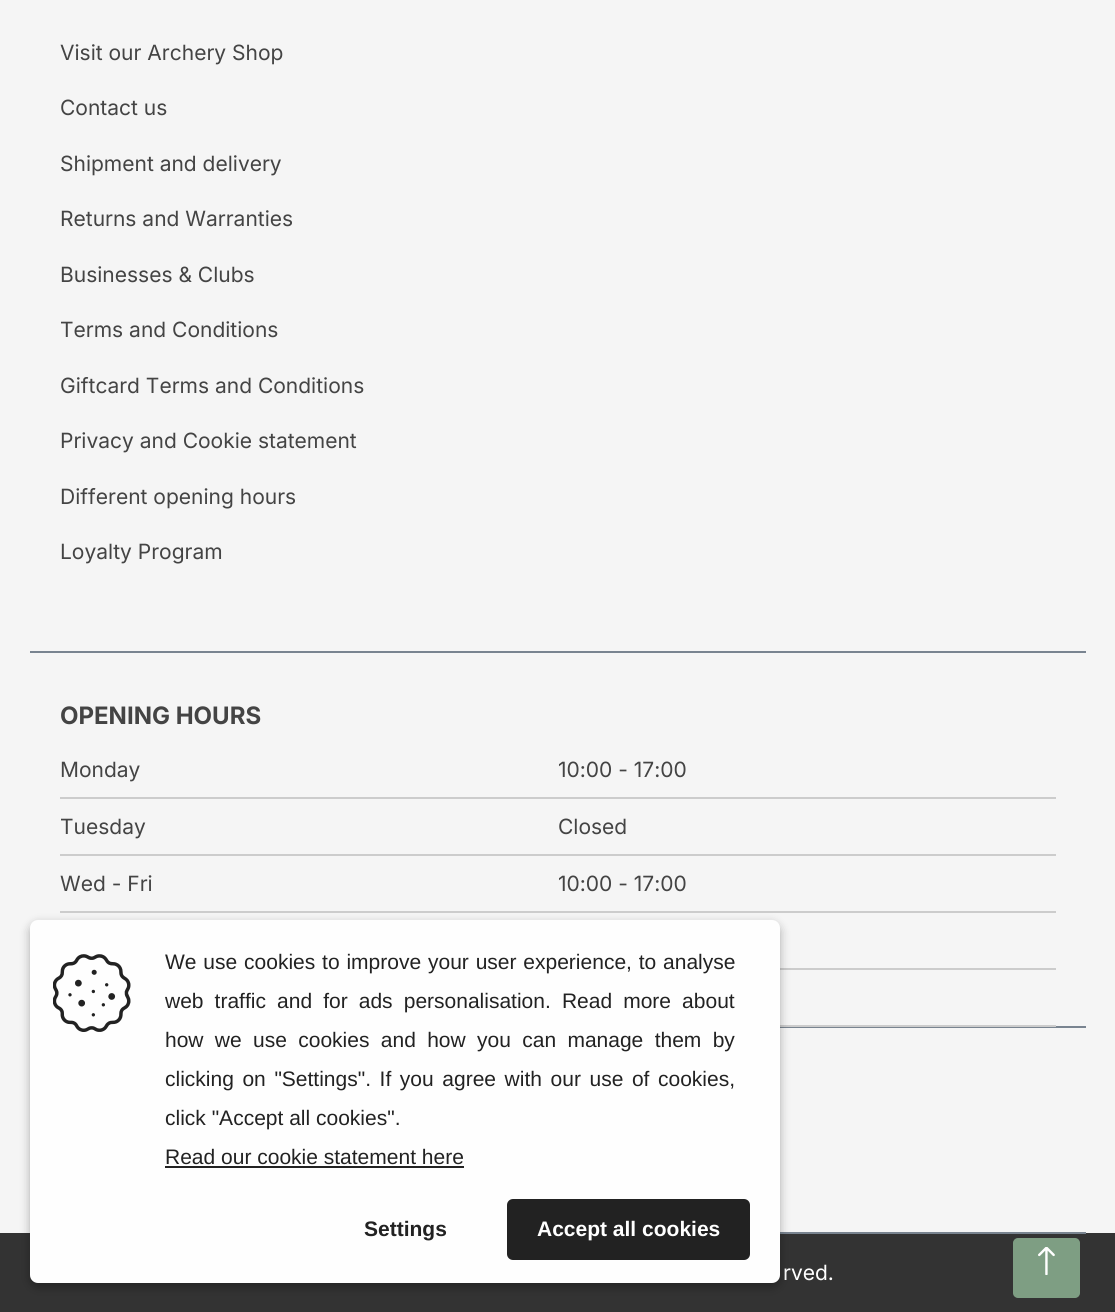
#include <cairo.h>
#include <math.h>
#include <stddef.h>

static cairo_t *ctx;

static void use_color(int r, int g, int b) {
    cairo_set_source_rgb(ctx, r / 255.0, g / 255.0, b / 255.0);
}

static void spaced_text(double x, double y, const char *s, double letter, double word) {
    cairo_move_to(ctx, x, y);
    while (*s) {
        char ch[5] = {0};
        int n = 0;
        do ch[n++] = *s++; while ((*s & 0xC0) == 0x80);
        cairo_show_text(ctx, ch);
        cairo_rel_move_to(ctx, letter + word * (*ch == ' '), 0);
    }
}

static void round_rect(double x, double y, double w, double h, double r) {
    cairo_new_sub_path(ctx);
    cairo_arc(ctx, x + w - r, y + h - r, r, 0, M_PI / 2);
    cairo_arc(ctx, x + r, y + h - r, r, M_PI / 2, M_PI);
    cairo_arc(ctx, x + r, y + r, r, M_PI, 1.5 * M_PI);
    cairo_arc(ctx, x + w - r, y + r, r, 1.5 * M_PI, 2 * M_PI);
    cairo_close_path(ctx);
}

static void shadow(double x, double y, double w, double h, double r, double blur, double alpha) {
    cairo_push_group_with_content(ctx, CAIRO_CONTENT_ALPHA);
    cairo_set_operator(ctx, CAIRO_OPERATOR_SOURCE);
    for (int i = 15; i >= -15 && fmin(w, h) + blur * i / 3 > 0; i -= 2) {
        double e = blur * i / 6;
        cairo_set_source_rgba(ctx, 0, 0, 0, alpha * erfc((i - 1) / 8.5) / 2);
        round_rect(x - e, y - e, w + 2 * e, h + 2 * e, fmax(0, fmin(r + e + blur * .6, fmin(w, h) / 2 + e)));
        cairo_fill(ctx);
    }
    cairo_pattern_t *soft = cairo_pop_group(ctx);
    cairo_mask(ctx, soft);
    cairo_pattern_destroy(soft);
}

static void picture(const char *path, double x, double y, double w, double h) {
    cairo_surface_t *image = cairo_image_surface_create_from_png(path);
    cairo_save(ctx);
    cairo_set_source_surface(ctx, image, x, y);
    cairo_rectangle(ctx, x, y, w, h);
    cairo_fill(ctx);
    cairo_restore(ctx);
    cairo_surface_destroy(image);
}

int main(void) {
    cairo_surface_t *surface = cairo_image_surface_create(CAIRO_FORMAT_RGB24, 1115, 1312);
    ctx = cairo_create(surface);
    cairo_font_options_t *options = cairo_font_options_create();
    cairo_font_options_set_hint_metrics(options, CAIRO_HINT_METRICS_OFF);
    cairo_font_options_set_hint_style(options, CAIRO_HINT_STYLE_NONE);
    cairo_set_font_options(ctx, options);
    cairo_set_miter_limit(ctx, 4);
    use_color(245, 245, 245);
    cairo_paint(ctx);
    use_color(121, 132, 144);
    cairo_rectangle(ctx, 30, 651, 1056, 2);
    cairo_fill(ctx);
    cairo_select_font_face(ctx, "Inter", CAIRO_FONT_SLANT_NORMAL, CAIRO_FONT_WEIGHT_NORMAL);
    cairo_set_font_size(ctx, 21);
    use_color(68, 68, 68);
    cairo_move_to(ctx, 60, 60);
    cairo_show_text(ctx, "Visit our Archery Shop");
    cairo_move_to(ctx, 60, 115);
    cairo_show_text(ctx, "Contact us");
    cairo_move_to(ctx, 60, 171);
    cairo_show_text(ctx, "Shipment and delivery");
    cairo_move_to(ctx, 60, 226);
    cairo_show_text(ctx, "Returns and Warranties");
    cairo_move_to(ctx, 60, 282);
    cairo_show_text(ctx, "Businesses & Clubs");
    cairo_move_to(ctx, 60, 337);
    cairo_show_text(ctx, "Terms and Conditions");
    cairo_move_to(ctx, 60, 393);
    cairo_show_text(ctx, "Giftcard Terms and Conditions");
    cairo_move_to(ctx, 60, 448);
    cairo_show_text(ctx, "Privacy and Cookie statement");
    cairo_move_to(ctx, 60, 504);
    cairo_show_text(ctx, "Different opening hours");
    cairo_move_to(ctx, 60, 559);
    cairo_show_text(ctx, "Loyalty Program");
    use_color(121, 132, 144);
    cairo_rectangle(ctx, 780, 1026, 306, 2);
    cairo_fill(ctx);
    cairo_select_font_face(ctx, "Inter", CAIRO_FONT_SLANT_NORMAL, CAIRO_FONT_WEIGHT_BOLD);
    cairo_set_font_size(ctx, 24);
    use_color(68, 68, 68);
    cairo_move_to(ctx, 60, 724);
    cairo_show_text(ctx, "OPENING HOURS");
    use_color(204, 204, 204);
    cairo_rectangle(ctx, 60, 797, 996, 2);
    cairo_fill(ctx);
    cairo_select_font_face(ctx, "Inter", CAIRO_FONT_SLANT_NORMAL, CAIRO_FONT_WEIGHT_NORMAL);
    cairo_set_font_size(ctx, 21);
    use_color(68, 68, 68);
    cairo_move_to(ctx, 60, 777);
    cairo_show_text(ctx, "Monday");
    cairo_move_to(ctx, 558, 777);
    cairo_show_text(ctx, "10:00 - 17:00");
    use_color(204, 204, 204);
    cairo_rectangle(ctx, 60, 854, 996, 2);
    cairo_fill(ctx);
    use_color(68, 68, 68);
    cairo_move_to(ctx, 60, 834);
    cairo_show_text(ctx, "Tuesday");
    cairo_move_to(ctx, 558, 834);
    cairo_show_text(ctx, "Closed");
    use_color(204, 204, 204);
    cairo_rectangle(ctx, 60, 911, 996, 2);
    cairo_fill(ctx);
    use_color(68, 68, 68);
    cairo_move_to(ctx, 60, 891);
    cairo_show_text(ctx, "Wed - Fri");
    cairo_move_to(ctx, 558, 891);
    cairo_show_text(ctx, "10:00 - 17:00");
    use_color(204, 204, 204);
    cairo_rectangle(ctx, 780, 968, 276, 2);
    cairo_fill(ctx);
    cairo_rectangle(ctx, 780, 1025, 276, 2);
    cairo_fill(ctx);
    use_color(51, 51, 51);
    cairo_rectangle(ctx, 0, 1233, 1115, 79);
    cairo_fill(ctx);
    use_color(121, 132, 144);
    cairo_rectangle(ctx, 780, 1232, 306, 2);
    cairo_fill(ctx);
    use_color(255, 255, 255);
    cairo_move_to(ctx, 783, 1280);
    cairo_show_text(ctx, "rved.");
    use_color(0, 0, 0);
    shadow(30, 924, 750, 363, 8, 5, 0.3);
    use_color(254, 254, 254);
    round_rect(30, 920, 750, 363, 8);
    cairo_fill(ctx);
    picture("img1.png", 53, 954, 78, 78);
    cairo_select_font_face(ctx, "Liberation Sans", CAIRO_FONT_SLANT_NORMAL, CAIRO_FONT_WEIGHT_NORMAL);
    use_color(34, 34, 34);
    spaced_text(165, 969, "We use cookies to improve your user experience, to analyse", 0, 1);
    spaced_text(165, 1008, "web traffic and for ads personalisation. Read more about", 0, 5.25);
    spaced_text(165, 1047, "how we use cookies and how you can manage them by", 0, 5.5);
    spaced_text(165, 1086, "clicking on \"Settings\". If you agree with our use of cookies,", 0, 2.75);
    cairo_move_to(ctx, 165, 1125);
    cairo_show_text(ctx, "click \"Accept all cookies\".");
    cairo_move_to(ctx, 165, 1164);
    cairo_show_text(ctx, "Read our cookie statement here");
    cairo_rectangle(ctx, 165, 1166, 299, 2);
    cairo_fill(ctx);
    cairo_select_font_face(ctx, "Liberation Sans", CAIRO_FONT_SLANT_NORMAL, CAIRO_FONT_WEIGHT_BOLD);
    cairo_move_to(ctx, 364, 1236);
    cairo_show_text(ctx, "Settings");
    round_rect(507, 1199, 243, 61, 6);
    cairo_fill(ctx);
    use_color(255, 255, 255);
    cairo_move_to(ctx, 537, 1236);
    cairo_show_text(ctx, "Accept all cookies");
    use_color(126, 158, 131);
    round_rect(1014, 1239, 65, 58, 4);
    cairo_fill_preserve(ctx);
    cairo_stroke(ctx);
    picture("img2.png", 1038, 1247, 17, 28);
    cairo_surface_write_to_png(surface, "result.png");
    cairo_font_options_destroy(options);
    cairo_destroy(ctx);
    cairo_surface_destroy(surface);
    return 0;
}
